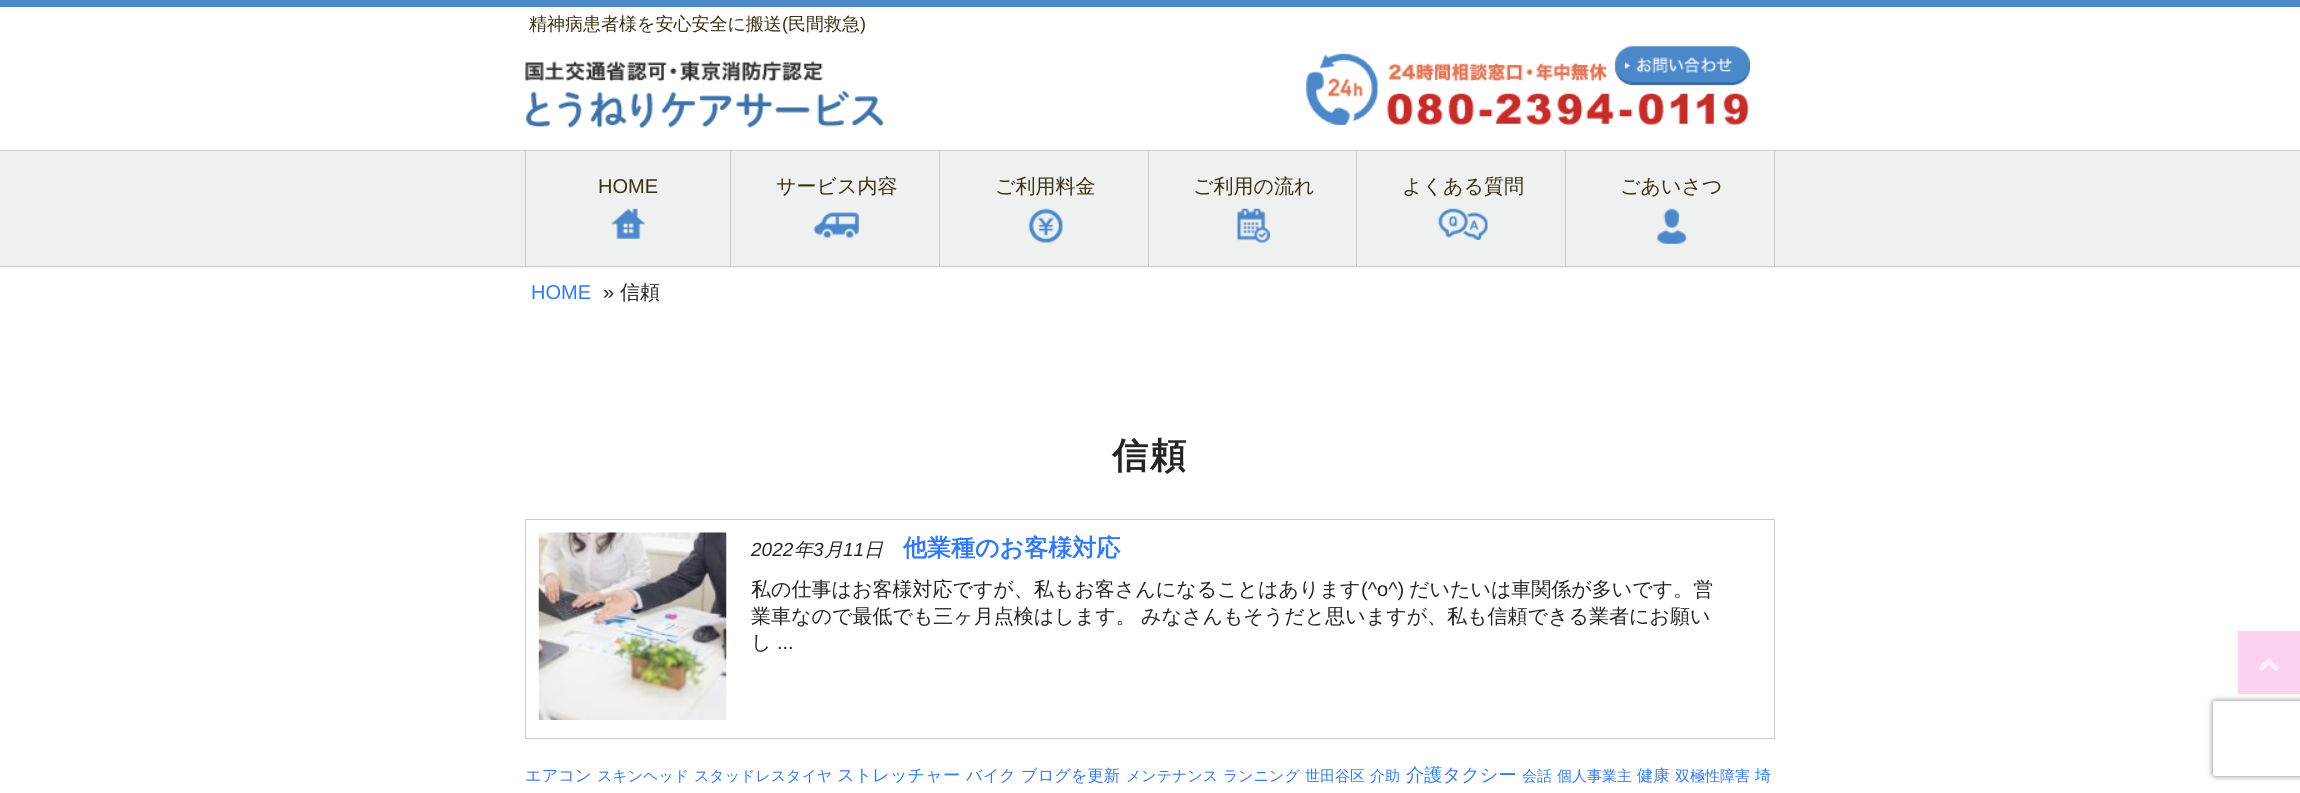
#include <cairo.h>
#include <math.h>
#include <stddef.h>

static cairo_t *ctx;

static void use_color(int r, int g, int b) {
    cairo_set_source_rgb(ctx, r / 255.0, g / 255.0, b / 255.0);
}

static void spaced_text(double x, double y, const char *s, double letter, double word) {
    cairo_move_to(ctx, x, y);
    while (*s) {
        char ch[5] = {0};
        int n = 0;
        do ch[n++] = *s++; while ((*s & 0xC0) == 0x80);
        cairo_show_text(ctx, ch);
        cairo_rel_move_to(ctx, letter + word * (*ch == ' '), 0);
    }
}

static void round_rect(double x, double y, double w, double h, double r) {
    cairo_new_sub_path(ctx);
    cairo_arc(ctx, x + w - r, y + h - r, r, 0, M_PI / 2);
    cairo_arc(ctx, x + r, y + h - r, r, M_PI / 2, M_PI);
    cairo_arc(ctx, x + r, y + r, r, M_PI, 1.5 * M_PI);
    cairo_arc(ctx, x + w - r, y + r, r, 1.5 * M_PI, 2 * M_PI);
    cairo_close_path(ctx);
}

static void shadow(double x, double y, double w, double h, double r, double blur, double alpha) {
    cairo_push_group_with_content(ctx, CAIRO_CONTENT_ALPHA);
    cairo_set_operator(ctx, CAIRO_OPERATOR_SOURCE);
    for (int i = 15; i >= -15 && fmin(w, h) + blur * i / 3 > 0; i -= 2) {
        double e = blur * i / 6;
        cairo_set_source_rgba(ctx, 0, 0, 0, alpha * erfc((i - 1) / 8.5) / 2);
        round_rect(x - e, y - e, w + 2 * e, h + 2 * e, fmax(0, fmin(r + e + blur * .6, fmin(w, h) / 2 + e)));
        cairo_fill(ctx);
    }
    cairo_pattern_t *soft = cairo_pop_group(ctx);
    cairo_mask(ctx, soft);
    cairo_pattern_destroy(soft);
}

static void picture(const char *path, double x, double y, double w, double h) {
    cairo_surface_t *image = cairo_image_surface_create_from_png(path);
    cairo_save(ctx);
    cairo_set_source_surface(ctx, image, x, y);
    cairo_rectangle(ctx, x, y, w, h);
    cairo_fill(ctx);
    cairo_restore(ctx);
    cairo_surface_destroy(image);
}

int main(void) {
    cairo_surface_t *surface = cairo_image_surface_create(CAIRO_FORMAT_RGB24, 2300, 793);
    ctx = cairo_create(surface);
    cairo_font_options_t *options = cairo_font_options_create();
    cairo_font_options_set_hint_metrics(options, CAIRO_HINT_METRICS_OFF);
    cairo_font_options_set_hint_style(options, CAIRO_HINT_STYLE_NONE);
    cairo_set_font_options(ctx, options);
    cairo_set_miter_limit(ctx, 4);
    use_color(255, 255, 255);
    cairo_paint(ctx);
    use_color(75, 136, 202);
    cairo_rectangle(ctx, 0, 0, 2300, 7);
    cairo_fill(ctx);
    cairo_select_font_face(ctx, "WenQuanYi Zen Hei Medium", CAIRO_FONT_SLANT_NORMAL, CAIRO_FONT_WEIGHT_NORMAL);
    cairo_set_font_size(ctx, 18);
    use_color(60, 47, 19);
    cairo_move_to(ctx, 529, 30);
    cairo_show_text(ctx, "精神病患者様を安心安全に搬送");
    cairo_select_font_face(ctx, "Liberation Sans", CAIRO_FONT_SLANT_NORMAL, CAIRO_FONT_WEIGHT_NORMAL);
    cairo_move_to(ctx, 782, 30);
    cairo_show_text(ctx, "(");
    cairo_select_font_face(ctx, "WenQuanYi Zen Hei Medium", CAIRO_FONT_SLANT_NORMAL, CAIRO_FONT_WEIGHT_NORMAL);
    cairo_move_to(ctx, 788, 30);
    cairo_show_text(ctx, "民間救急");
    cairo_select_font_face(ctx, "Liberation Sans", CAIRO_FONT_SLANT_NORMAL, CAIRO_FONT_WEIGHT_NORMAL);
    cairo_move_to(ctx, 860, 30);
    cairo_show_text(ctx, ")");
    picture("img1.png", 525, 61, 359, 67);
    picture("img2.png", 1306, 46, 444, 79);
    use_color(239, 241, 240);
    cairo_rectangle(ctx, 0, 151, 2300, 117);
    cairo_fill(ctx);
    use_color(204, 204, 204);
    cairo_rectangle(ctx, 0, 150, 2300, 1);
    cairo_fill(ctx);
    cairo_rectangle(ctx, 0, 266, 2300, 1);
    cairo_fill(ctx);
    cairo_rectangle(ctx, 730, 151, 1, 115);
    cairo_fill(ctx);
    cairo_rectangle(ctx, 525, 151, 1, 115);
    cairo_fill(ctx);
    cairo_set_font_size(ctx, 20);
    use_color(60, 47, 19);
    cairo_move_to(ctx, 598, 193);
    cairo_show_text(ctx, "HOME");
    picture("img3.png", 611, 208, 34, 31);
    use_color(204, 204, 204);
    cairo_rectangle(ctx, 939, 151, 1, 115);
    cairo_fill(ctx);
    cairo_select_font_face(ctx, "WenQuanYi Zen Hei Medium", CAIRO_FONT_SLANT_NORMAL, CAIRO_FONT_WEIGHT_NORMAL);
    use_color(60, 47, 19);
    cairo_move_to(ctx, 776, 193);
    cairo_show_text(ctx, "サービス内容");
    picture("img4.png", 813, 212, 46, 26);
    use_color(204, 204, 204);
    cairo_rectangle(ctx, 1148, 151, 1, 115);
    cairo_fill(ctx);
    use_color(60, 47, 19);
    cairo_move_to(ctx, 995, 193);
    cairo_show_text(ctx, "ご利用料金");
    picture("img5.png", 1028, 208, 35, 35);
    use_color(204, 204, 204);
    cairo_rectangle(ctx, 1356, 151, 1, 115);
    cairo_fill(ctx);
    use_color(60, 47, 19);
    cairo_move_to(ctx, 1193, 193);
    cairo_show_text(ctx, "ご利用の流れ");
    picture("img6.png", 1237, 208, 33, 35);
    use_color(204, 204, 204);
    cairo_rectangle(ctx, 1565, 151, 1, 115);
    cairo_fill(ctx);
    use_color(60, 47, 19);
    cairo_move_to(ctx, 1402, 193);
    cairo_show_text(ctx, "よくある質問");
    picture("img7.png", 1438, 208, 50, 32);
    use_color(204, 204, 204);
    cairo_rectangle(ctx, 1774, 151, 1, 115);
    cairo_fill(ctx);
    use_color(60, 47, 19);
    cairo_move_to(ctx, 1620, 193);
    cairo_show_text(ctx, "ごあいさつ");
    picture("img8.png", 1657, 208, 30, 36);
    cairo_select_font_face(ctx, "Liberation Sans", CAIRO_FONT_SLANT_NORMAL, CAIRO_FONT_WEIGHT_NORMAL);
    use_color(46, 121, 255);
    cairo_move_to(ctx, 531, 299);
    cairo_show_text(ctx, "HOME");
    use_color(37, 37, 37);
    cairo_move_to(ctx, 603, 299);
    cairo_show_text(ctx, "»");
    cairo_select_font_face(ctx, "WenQuanYi Zen Hei Medium", CAIRO_FONT_SLANT_NORMAL, CAIRO_FONT_WEIGHT_NORMAL);
    cairo_move_to(ctx, 620, 299);
    cairo_show_text(ctx, "信頼");
    cairo_select_font_face(ctx, "WenQuanYi Zen Hei", CAIRO_FONT_SLANT_NORMAL, CAIRO_FONT_WEIGHT_BOLD);
    cairo_set_font_size(ctx, 36);
    spaced_text(1112, 468, "信頼", 2, 0);
    cairo_rectangle(ctx, 525.5, 519.5, 1249, 219);
    use_color(204, 204, 204);
    cairo_set_line_width(ctx, 1);
    cairo_stroke(ctx);
    picture("img9.png", 538, 532, 189, 188);
    cairo_select_font_face(ctx, "Liberation Sans", CAIRO_FONT_SLANT_ITALIC, CAIRO_FONT_WEIGHT_NORMAL);
    cairo_set_font_size(ctx, 19);
    use_color(37, 37, 37);
    cairo_move_to(ctx, 751, 556);
    cairo_show_text(ctx, "2022");
    cairo_select_font_face(ctx, "WenQuanYi Zen Hei Medium", CAIRO_FONT_SLANT_ITALIC, CAIRO_FONT_WEIGHT_NORMAL);
    cairo_move_to(ctx, 794, 556);
    cairo_show_text(ctx, "年");
    cairo_select_font_face(ctx, "Liberation Sans", CAIRO_FONT_SLANT_ITALIC, CAIRO_FONT_WEIGHT_NORMAL);
    cairo_move_to(ctx, 813, 556);
    cairo_show_text(ctx, "3");
    cairo_select_font_face(ctx, "WenQuanYi Zen Hei Medium", CAIRO_FONT_SLANT_ITALIC, CAIRO_FONT_WEIGHT_NORMAL);
    cairo_move_to(ctx, 824, 556);
    cairo_show_text(ctx, "月");
    cairo_select_font_face(ctx, "Liberation Sans", CAIRO_FONT_SLANT_ITALIC, CAIRO_FONT_WEIGHT_NORMAL);
    cairo_move_to(ctx, 843, 556);
    cairo_show_text(ctx, "11");
    cairo_select_font_face(ctx, "WenQuanYi Zen Hei Medium", CAIRO_FONT_SLANT_ITALIC, CAIRO_FONT_WEIGHT_NORMAL);
    cairo_move_to(ctx, 864, 556);
    cairo_show_text(ctx, "日");
    cairo_select_font_face(ctx, "WenQuanYi Zen Hei", CAIRO_FONT_SLANT_NORMAL, CAIRO_FONT_WEIGHT_BOLD);
    cairo_set_font_size(ctx, 24);
    use_color(46, 121, 255);
    cairo_move_to(ctx, 903, 556);
    cairo_show_text(ctx, "他業種のお客様対応");
    cairo_select_font_face(ctx, "WenQuanYi Zen Hei Medium", CAIRO_FONT_SLANT_NORMAL, CAIRO_FONT_WEIGHT_NORMAL);
    cairo_set_font_size(ctx, 20);
    use_color(37, 37, 37);
    cairo_move_to(ctx, 751, 596);
    cairo_show_text(ctx, "私の仕事はお客様対応ですが、私もお客さんになることはあります");
    cairo_select_font_face(ctx, "Liberation Sans", CAIRO_FONT_SLANT_NORMAL, CAIRO_FONT_WEIGHT_NORMAL);
    cairo_move_to(ctx, 1361, 596);
    cairo_show_text(ctx, "(^o^)");
    cairo_select_font_face(ctx, "WenQuanYi Zen Hei Medium", CAIRO_FONT_SLANT_NORMAL, CAIRO_FONT_WEIGHT_NORMAL);
    cairo_move_to(ctx, 1409, 596);
    cairo_show_text(ctx, "だいたいは車関係が多いです。営");
    cairo_move_to(ctx, 751, 623);
    cairo_show_text(ctx, "業車なので最低でも三ヶ月点検はします。");
    cairo_move_to(ctx, 1141, 623);
    cairo_show_text(ctx, "みなさんもそうだと思いますが、私も信頼できる業者にお願い");
    cairo_move_to(ctx, 751, 649);
    cairo_show_text(ctx, "し");
    cairo_select_font_face(ctx, "Liberation Sans", CAIRO_FONT_SLANT_NORMAL, CAIRO_FONT_WEIGHT_NORMAL);
    cairo_move_to(ctx, 777, 649);
    cairo_show_text(ctx, "...");
    cairo_select_font_face(ctx, "WenQuanYi Zen Hei Medium", CAIRO_FONT_SLANT_NORMAL, CAIRO_FONT_WEIGHT_NORMAL);
    cairo_set_font_size(ctx, 16.25);
    use_color(46, 121, 255);
    cairo_move_to(ctx, 525, 781);
    cairo_show_text(ctx, "エアコン");
    cairo_set_font_size(ctx, 15);
    cairo_move_to(ctx, 597, 781);
    cairo_show_text(ctx, "スキンヘッド");
    cairo_move_to(ctx, 694, 781);
    cairo_show_text(ctx, "スタッドレスタイヤ");
    cairo_set_font_size(ctx, 17.25);
    cairo_move_to(ctx, 837, 781);
    cairo_show_text(ctx, "ストレッチャー");
    cairo_set_font_size(ctx, 16.25);
    cairo_move_to(ctx, 966, 781);
    cairo_show_text(ctx, "バイク");
    cairo_move_to(ctx, 1021, 781);
    cairo_show_text(ctx, "ブログを更新");
    cairo_set_font_size(ctx, 15);
    cairo_move_to(ctx, 1126, 781);
    cairo_show_text(ctx, "メンテナンス");
    cairo_move_to(ctx, 1223, 781);
    cairo_show_text(ctx, "ランニング");
    cairo_move_to(ctx, 1305, 781);
    cairo_show_text(ctx, "世田谷区");
    cairo_move_to(ctx, 1370, 781);
    cairo_show_text(ctx, "介助");
    cairo_set_font_size(ctx, 18.25);
    cairo_move_to(ctx, 1406, 781);
    cairo_show_text(ctx, "介護タクシー");
    cairo_set_font_size(ctx, 15);
    cairo_move_to(ctx, 1522, 781);
    cairo_show_text(ctx, "会話");
    cairo_move_to(ctx, 1557, 781);
    cairo_show_text(ctx, "個人事業主");
    cairo_set_font_size(ctx, 16.25);
    cairo_move_to(ctx, 1637, 781);
    cairo_show_text(ctx, "健康");
    cairo_set_font_size(ctx, 15);
    cairo_move_to(ctx, 1675, 781);
    cairo_show_text(ctx, "双極性障害");
    cairo_set_font_size(ctx, 16.25);
    cairo_move_to(ctx, 1755, 781);
    cairo_show_text(ctx, "埼");
    use_color(252, 210, 240);
    cairo_rectangle(ctx, 2238, 631, 62, 63);
    cairo_fill(ctx);
    picture("img10.png", 2259, 658, 20, 13);
    cairo_save(ctx);
    cairo_set_fill_rule(ctx, CAIRO_FILL_RULE_EVEN_ODD);
    cairo_new_path(ctx);
    cairo_move_to(ctx, 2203, 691);
    cairo_line_to(ctx, 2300, 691);
    cairo_line_to(ctx, 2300, 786);
    cairo_line_to(ctx, 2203, 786);
    cairo_close_path(ctx);
    cairo_move_to(ctx, 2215.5, 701);
    cairo_line_to(ctx, 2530.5, 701);
    cairo_curve_to(ctx, 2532, 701, 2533, 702, 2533, 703.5);
    cairo_line_to(ctx, 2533, 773.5);
    cairo_curve_to(ctx, 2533, 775, 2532, 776, 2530.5, 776);
    cairo_line_to(ctx, 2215.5, 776);
    cairo_curve_to(ctx, 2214, 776, 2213, 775, 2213, 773.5);
    cairo_line_to(ctx, 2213, 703.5);
    cairo_curve_to(ctx, 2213, 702, 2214, 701, 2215.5, 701);
    cairo_close_path(ctx);
    cairo_clip(ctx);
    use_color(128, 128, 128);
    shadow(2213, 701, 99, 75, 2.5, 3, 1);
    cairo_restore(ctx);
    cairo_surface_write_to_png(surface, "result.png");
    cairo_font_options_destroy(options);
    cairo_destroy(ctx);
    cairo_surface_destroy(surface);
    return 0;
}
